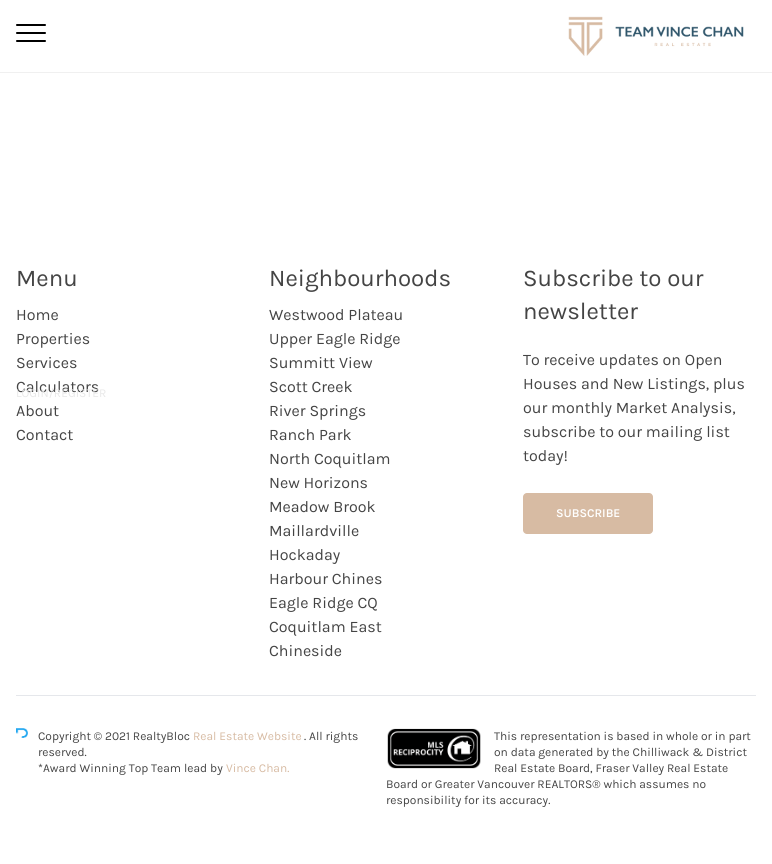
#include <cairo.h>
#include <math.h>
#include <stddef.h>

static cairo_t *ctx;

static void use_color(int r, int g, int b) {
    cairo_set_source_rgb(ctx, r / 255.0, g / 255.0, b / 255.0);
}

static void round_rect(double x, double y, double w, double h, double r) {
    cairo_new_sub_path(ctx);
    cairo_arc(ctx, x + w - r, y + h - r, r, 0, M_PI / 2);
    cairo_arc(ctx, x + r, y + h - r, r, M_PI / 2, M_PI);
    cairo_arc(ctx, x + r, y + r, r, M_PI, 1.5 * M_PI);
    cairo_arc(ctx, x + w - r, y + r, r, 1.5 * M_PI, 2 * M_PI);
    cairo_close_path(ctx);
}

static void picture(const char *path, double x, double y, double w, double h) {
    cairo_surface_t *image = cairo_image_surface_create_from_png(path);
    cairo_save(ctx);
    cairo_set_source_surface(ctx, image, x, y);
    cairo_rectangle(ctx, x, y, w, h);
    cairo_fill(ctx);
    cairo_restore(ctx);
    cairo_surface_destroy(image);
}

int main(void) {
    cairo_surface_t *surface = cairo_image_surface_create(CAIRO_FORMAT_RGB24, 772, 864);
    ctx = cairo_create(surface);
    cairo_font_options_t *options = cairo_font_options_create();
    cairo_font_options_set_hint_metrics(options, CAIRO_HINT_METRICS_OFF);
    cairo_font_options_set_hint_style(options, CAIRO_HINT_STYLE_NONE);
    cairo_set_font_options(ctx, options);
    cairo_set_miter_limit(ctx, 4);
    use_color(255, 255, 255);
    cairo_paint(ctx);
    cairo_select_font_face(ctx, "Karla", CAIRO_FONT_SLANT_NORMAL, CAIRO_FONT_WEIGHT_NORMAL);
    cairo_set_font_size(ctx, 24);
    use_color(68, 68, 68);
    cairo_move_to(ctx, 16, 286);
    cairo_show_text(ctx, "Menu");
    cairo_set_font_size(ctx, 16);
    cairo_move_to(ctx, 16, 320);
    cairo_show_text(ctx, "Home");
    cairo_move_to(ctx, 16, 344);
    cairo_show_text(ctx, "Properties");
    cairo_move_to(ctx, 16, 368);
    cairo_show_text(ctx, "Services");
    cairo_move_to(ctx, 16, 392);
    cairo_show_text(ctx, "Calculators");
    cairo_move_to(ctx, 16, 416);
    cairo_show_text(ctx, "About");
    cairo_move_to(ctx, 16, 440);
    cairo_show_text(ctx, "Contact");
    cairo_set_font_size(ctx, 24);
    cairo_move_to(ctx, 269, 286);
    cairo_show_text(ctx, "Neighbourhoods");
    cairo_set_font_size(ctx, 16);
    cairo_move_to(ctx, 269, 320);
    cairo_show_text(ctx, "Westwood Plateau");
    cairo_move_to(ctx, 269, 344);
    cairo_show_text(ctx, "Upper Eagle Ridge");
    cairo_move_to(ctx, 269, 368);
    cairo_show_text(ctx, "Summitt View");
    cairo_move_to(ctx, 269, 392);
    cairo_show_text(ctx, "Scott Creek");
    cairo_move_to(ctx, 269, 416);
    cairo_show_text(ctx, "River Springs");
    cairo_move_to(ctx, 269, 440);
    cairo_show_text(ctx, "Ranch Park");
    cairo_move_to(ctx, 269, 464);
    cairo_show_text(ctx, "North Coquitlam");
    cairo_move_to(ctx, 269, 488);
    cairo_show_text(ctx, "New Horizons");
    cairo_move_to(ctx, 269, 512);
    cairo_show_text(ctx, "Meadow Brook");
    cairo_move_to(ctx, 269, 536);
    cairo_show_text(ctx, "Maillardville");
    cairo_move_to(ctx, 269, 560);
    cairo_show_text(ctx, "Hockaday");
    cairo_move_to(ctx, 269, 584);
    cairo_show_text(ctx, "Harbour Chines");
    cairo_move_to(ctx, 269, 608);
    cairo_show_text(ctx, "Eagle Ridge CQ");
    cairo_move_to(ctx, 269, 632);
    cairo_show_text(ctx, "Coquitlam East");
    cairo_move_to(ctx, 269, 656);
    cairo_show_text(ctx, "Chineside");
    cairo_set_font_size(ctx, 24);
    cairo_move_to(ctx, 523, 286);
    cairo_show_text(ctx, "Subscribe to our");
    cairo_move_to(ctx, 523, 319);
    cairo_show_text(ctx, "newsletter");
    cairo_set_font_size(ctx, 16);
    cairo_move_to(ctx, 523, 365);
    cairo_show_text(ctx, "To receive updates on Open");
    cairo_move_to(ctx, 523, 389);
    cairo_show_text(ctx, "Houses and New Listings, plus");
    cairo_move_to(ctx, 523, 413);
    cairo_show_text(ctx, "our monthly Market Analysis,");
    cairo_move_to(ctx, 523, 437);
    cairo_show_text(ctx, "subscribe to our mailing list");
    cairo_move_to(ctx, 523, 461);
    cairo_show_text(ctx, "today!");
    use_color(215, 187, 163);
    round_rect(523, 493, 130, 41, 4);
    cairo_fill(ctx);
    cairo_select_font_face(ctx, "Karla SemiBold", CAIRO_FONT_SLANT_NORMAL, CAIRO_FONT_WEIGHT_NORMAL);
    cairo_set_font_size(ctx, 12);
    use_color(255, 255, 255);
    cairo_move_to(ctx, 556, 517);
    cairo_show_text(ctx, "SUBSCRIBE");
    use_color(229, 231, 235);
    cairo_rectangle(ctx, 16, 695, 740, 1);
    cairo_fill(ctx);
    picture("img1.png", 16, 728, 12, 10);
    cairo_select_font_face(ctx, "Karla", CAIRO_FONT_SLANT_NORMAL, CAIRO_FONT_WEIGHT_NORMAL);
    use_color(68, 68, 68);
    cairo_move_to(ctx, 38, 740);
    cairo_show_text(ctx, "Copyright © 2021 RealtyBloc");
    use_color(215, 187, 163);
    cairo_move_to(ctx, 193, 740);
    cairo_show_text(ctx, "Real Estate Website");
    use_color(68, 68, 68);
    cairo_move_to(ctx, 304, 740);
    cairo_show_text(ctx, ". All rights");
    cairo_move_to(ctx, 38, 756);
    cairo_show_text(ctx, "reserved.");
    cairo_move_to(ctx, 38, 772);
    cairo_show_text(ctx, "*Award Winning Top Team lead by");
    use_color(215, 187, 163);
    cairo_move_to(ctx, 226, 772);
    cairo_show_text(ctx, "Vince Chan.");
    picture("img2.png", 387, 728, 94, 41);
    use_color(68, 68, 68);
    cairo_move_to(ctx, 494, 740);
    cairo_show_text(ctx, "This representation is based in whole or in part");
    cairo_move_to(ctx, 494, 756);
    cairo_show_text(ctx, "on data generated by the Chilliwack & District");
    cairo_move_to(ctx, 494, 772);
    cairo_show_text(ctx, "Real Estate Board, Fraser Valley Real Estate");
    cairo_move_to(ctx, 386, 788);
    cairo_show_text(ctx, "Board or Greater Vancouver REALTORS® which assumes no");
    cairo_move_to(ctx, 386, 804);
    cairo_show_text(ctx, "responsibility for its accuracy.");
    use_color(240, 240, 240);
    cairo_rectangle(ctx, 0, 72, 772, 1);
    cairo_fill(ctx);
    picture("img3.png", 568, 16, 176, 40);
    use_color(0, 0, 0);
    round_rect(16, 24, 30, 2, 1);
    cairo_fill(ctx);
    round_rect(16, 32, 30, 2, 1);
    cairo_fill(ctx);
    round_rect(16, 40, 30, 2, 1);
    cairo_fill(ctx);
    use_color(232, 232, 232);
    cairo_move_to(ctx, 16, 397);
    cairo_show_text(ctx, "LOGIN/REGISTER");
    cairo_surface_write_to_png(surface, "result.png");
    cairo_font_options_destroy(options);
    cairo_destroy(ctx);
    cairo_surface_destroy(surface);
    return 0;
}
